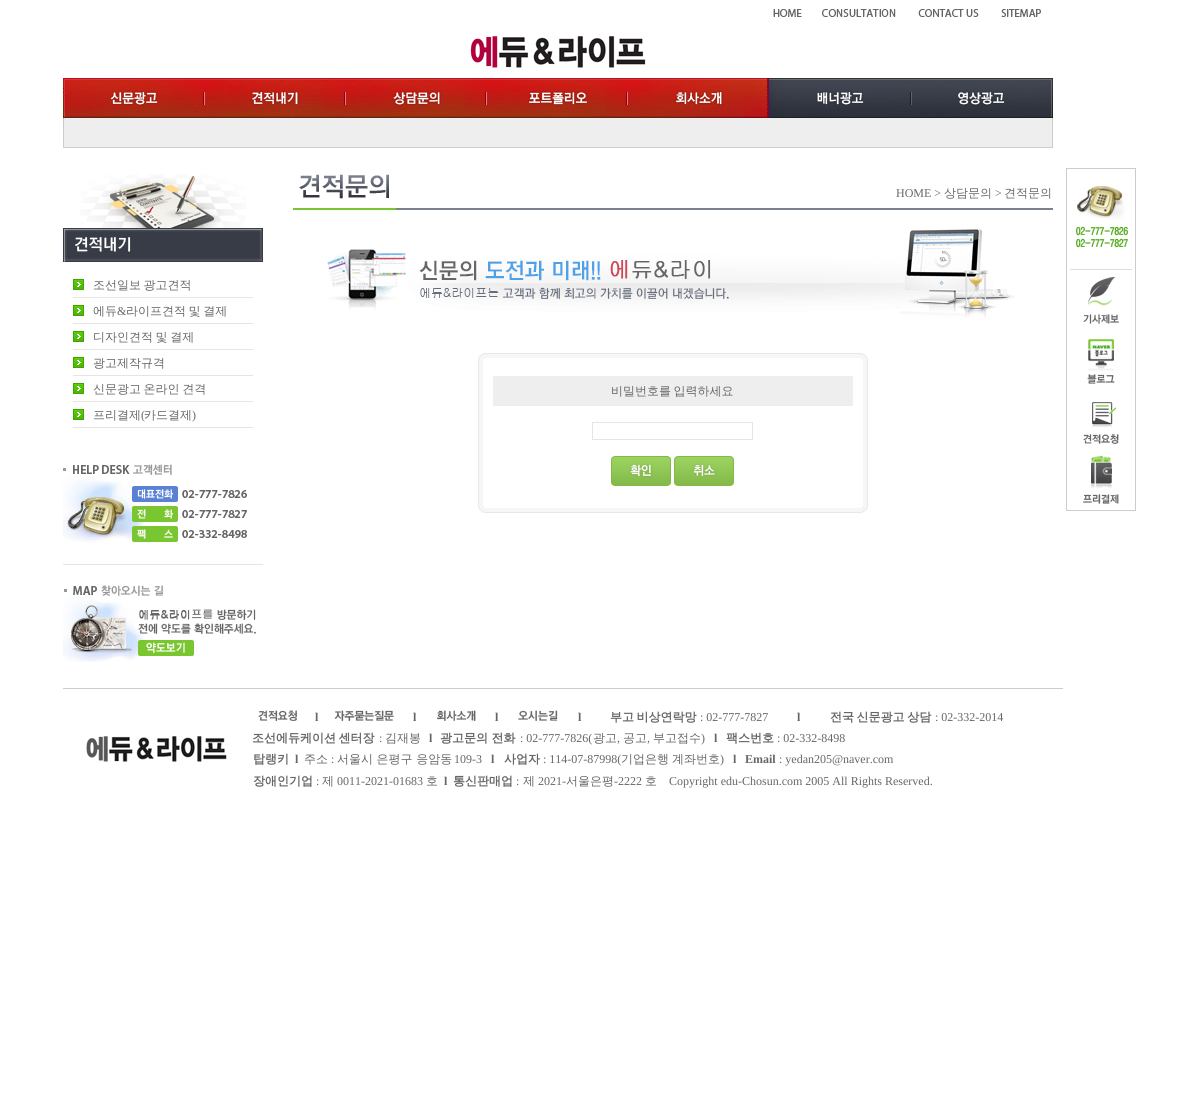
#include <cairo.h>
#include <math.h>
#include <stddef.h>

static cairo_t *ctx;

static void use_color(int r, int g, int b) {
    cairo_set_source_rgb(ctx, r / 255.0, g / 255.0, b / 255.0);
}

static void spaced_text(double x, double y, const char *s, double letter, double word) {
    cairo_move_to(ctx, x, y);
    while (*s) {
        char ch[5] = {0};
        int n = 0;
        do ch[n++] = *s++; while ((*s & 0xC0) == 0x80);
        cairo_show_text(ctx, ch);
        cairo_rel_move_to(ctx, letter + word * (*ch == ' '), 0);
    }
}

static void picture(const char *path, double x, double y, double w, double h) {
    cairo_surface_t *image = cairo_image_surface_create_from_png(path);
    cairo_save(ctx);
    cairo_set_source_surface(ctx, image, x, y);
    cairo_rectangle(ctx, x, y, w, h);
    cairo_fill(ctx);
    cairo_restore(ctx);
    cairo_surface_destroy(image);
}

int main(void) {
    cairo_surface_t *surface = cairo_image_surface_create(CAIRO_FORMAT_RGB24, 1198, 1116);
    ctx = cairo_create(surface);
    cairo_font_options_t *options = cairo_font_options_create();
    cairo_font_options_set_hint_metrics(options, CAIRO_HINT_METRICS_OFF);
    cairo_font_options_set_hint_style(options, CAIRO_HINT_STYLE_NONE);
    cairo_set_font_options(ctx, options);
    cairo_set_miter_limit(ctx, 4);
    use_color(255, 255, 255);
    cairo_paint(ctx);
    picture("img1.png", 773, 9, 29, 8);
    picture("img2.png", 822, 9, 74, 8);
    picture("img3.png", 918, 9, 61, 8);
    picture("img4.png", 1001, 9, 40, 8);
    picture("img5.png", 470, 36, 176, 32);
    picture("img6.png", 63, 78, 990, 70);
    picture("img7.png", 86, 85, 95, 27);
    picture("img8.png", 227, 85, 95, 27);
    picture("img9.png", 369, 85, 95, 27);
    picture("img10.png", 510, 85, 95, 27);
    picture("img11.png", 652, 85, 94, 27);
    picture("img12.png", 816, 86, 68, 21);
    picture("img13.png", 956, 88, 49, 24);
    picture("img14.png", 80, 174, 166, 54);
    picture("img15.png", 63, 228, 200, 34);
    use_color(229, 229, 229);
    cairo_rectangle(ctx, 73, 297, 180, 1);
    cairo_fill(ctx);
    picture("img16.png", 73, 279, 11, 11);
    cairo_select_font_face(ctx, "WenQuanYi Zen Hei Medium", CAIRO_FONT_SLANT_NORMAL, CAIRO_FONT_WEIGHT_NORMAL);
    cairo_set_font_size(ctx, 12);
    use_color(102, 102, 102);
    spaced_text(93, 289, "조선일보 광고견적", 0, -1);
    use_color(229, 229, 229);
    cairo_rectangle(ctx, 73, 323, 180, 1);
    cairo_fill(ctx);
    picture("img16.png", 73, 305, 11, 11);
    use_color(102, 102, 102);
    cairo_move_to(ctx, 93, 315);
    cairo_show_text(ctx, "에듀");
    cairo_select_font_face(ctx, "Liberation Serif", CAIRO_FONT_SLANT_NORMAL, CAIRO_FONT_WEIGHT_NORMAL);
    cairo_move_to(ctx, 117, 315);
    cairo_show_text(ctx, "&");
    cairo_select_font_face(ctx, "WenQuanYi Zen Hei Medium", CAIRO_FONT_SLANT_NORMAL, CAIRO_FONT_WEIGHT_NORMAL);
    spaced_text(126, 315, "라이프견적 및 결제", 0, -1);
    use_color(229, 229, 229);
    cairo_rectangle(ctx, 73, 349, 180, 1);
    cairo_fill(ctx);
    picture("img16.png", 73, 331, 11, 11);
    use_color(102, 102, 102);
    spaced_text(93, 341, "디자인견적 및 결제", 0, -1);
    use_color(229, 229, 229);
    cairo_rectangle(ctx, 73, 375, 180, 1);
    cairo_fill(ctx);
    picture("img16.png", 73, 357, 11, 11);
    use_color(102, 102, 102);
    cairo_move_to(ctx, 93, 367);
    cairo_show_text(ctx, "광고제작규격");
    use_color(229, 229, 229);
    cairo_rectangle(ctx, 73, 401, 180, 1);
    cairo_fill(ctx);
    picture("img16.png", 73, 383, 11, 11);
    use_color(102, 102, 102);
    spaced_text(93, 393, "신문광고 온라인 견격", 0, -1);
    use_color(229, 229, 229);
    cairo_rectangle(ctx, 73, 427, 180, 1);
    cairo_fill(ctx);
    picture("img16.png", 73, 409, 11, 11);
    use_color(102, 102, 102);
    cairo_move_to(ctx, 93, 419);
    cairo_show_text(ctx, "프리결제");
    cairo_select_font_face(ctx, "Liberation Serif", CAIRO_FONT_SLANT_NORMAL, CAIRO_FONT_WEIGHT_NORMAL);
    cairo_move_to(ctx, 141, 419);
    cairo_show_text(ctx, "(");
    cairo_select_font_face(ctx, "WenQuanYi Zen Hei Medium", CAIRO_FONT_SLANT_NORMAL, CAIRO_FONT_WEIGHT_NORMAL);
    cairo_move_to(ctx, 144, 419);
    cairo_show_text(ctx, "카드결제");
    cairo_select_font_face(ctx, "Liberation Serif", CAIRO_FONT_SLANT_NORMAL, CAIRO_FONT_WEIGHT_NORMAL);
    cairo_move_to(ctx, 192, 419);
    cairo_show_text(ctx, ")");
    picture("img17.png", 63, 464, 184, 79);
    picture("img18.png", 63, 564, 200, 98);
    picture("img19.png", 299, 174, 90, 25);
    cairo_move_to(ctx, 896, 197);
    cairo_show_text(ctx, "HOME >");
    cairo_select_font_face(ctx, "WenQuanYi Zen Hei Medium", CAIRO_FONT_SLANT_NORMAL, CAIRO_FONT_WEIGHT_NORMAL);
    cairo_move_to(ctx, 944, 197);
    cairo_show_text(ctx, "상담문의");
    cairo_select_font_face(ctx, "Liberation Serif", CAIRO_FONT_SLANT_NORMAL, CAIRO_FONT_WEIGHT_NORMAL);
    cairo_move_to(ctx, 995, 197);
    cairo_show_text(ctx, ">");
    cairo_select_font_face(ctx, "WenQuanYi Zen Hei Medium", CAIRO_FONT_SLANT_NORMAL, CAIRO_FONT_WEIGHT_NORMAL);
    cairo_move_to(ctx, 1004, 197);
    cairo_show_text(ctx, "견적문의");
    use_color(122, 198, 48);
    cairo_rectangle(ctx, 293, 208, 103, 2);
    cairo_fill(ctx);
    use_color(124, 129, 145);
    cairo_rectangle(ctx, 396, 208, 657, 2);
    cairo_fill(ctx);
    picture("img20.png", 327, 228, 688, 90);
    picture("img21.png", 478, 353, 390, 160);
    use_color(238, 238, 238);
    cairo_rectangle(ctx, 493, 376, 360, 30);
    cairo_fill(ctx);
    use_color(102, 102, 102);
    spaced_text(611, 395, "비밀번호를 입력하세요", 0, -1);
    cairo_rectangle(ctx, 592.5, 422.5, 160, 17);
    use_color(229, 229, 229);
    cairo_set_line_width(ctx, 1);
    cairo_stroke(ctx);
    picture("img22.png", 611, 456, 60, 30);
    picture("img23.png", 674, 456, 60, 30);
    use_color(204, 204, 204);
    cairo_rectangle(ctx, 63, 688, 1000, 1);
    cairo_fill(ctx);
    picture("img24.png", 86, 736, 141, 26);
    picture("img25.png", 258, 710, 39, 11);
    cairo_select_font_face(ctx, "Liberation Serif", CAIRO_FONT_SLANT_NORMAL, CAIRO_FONT_WEIGHT_BOLD);
    use_color(102, 102, 102);
    cairo_move_to(ctx, 315, 721);
    cairo_show_text(ctx, "l");
    picture("img26.png", 334, 710, 60, 11);
    cairo_move_to(ctx, 413, 721);
    cairo_show_text(ctx, "l");
    picture("img27.png", 437, 710, 39, 11);
    cairo_move_to(ctx, 495, 721);
    cairo_show_text(ctx, "l");
    picture("img28.png", 518, 710, 40, 11);
    cairo_move_to(ctx, 578, 721);
    cairo_show_text(ctx, "l");
    cairo_select_font_face(ctx, "WenQuanYi Zen Hei", CAIRO_FONT_SLANT_NORMAL, CAIRO_FONT_WEIGHT_BOLD);
    spaced_text(610, 721, "부고 비상연락망", 0, -1);
    cairo_select_font_face(ctx, "Liberation Serif", CAIRO_FONT_SLANT_NORMAL, CAIRO_FONT_WEIGHT_NORMAL);
    cairo_move_to(ctx, 700, 721);
    cairo_show_text(ctx, ": 02-777-7827");
    cairo_select_font_face(ctx, "Liberation Serif", CAIRO_FONT_SLANT_NORMAL, CAIRO_FONT_WEIGHT_BOLD);
    cairo_move_to(ctx, 797, 721);
    cairo_show_text(ctx, "l");
    cairo_select_font_face(ctx, "WenQuanYi Zen Hei", CAIRO_FONT_SLANT_NORMAL, CAIRO_FONT_WEIGHT_BOLD);
    spaced_text(830, 721, "전국 신문광고 상담", 0, -1);
    cairo_select_font_face(ctx, "Liberation Serif", CAIRO_FONT_SLANT_NORMAL, CAIRO_FONT_WEIGHT_NORMAL);
    cairo_move_to(ctx, 935, 721);
    cairo_show_text(ctx, ": 02-332-2014");
    cairo_select_font_face(ctx, "WenQuanYi Zen Hei", CAIRO_FONT_SLANT_NORMAL, CAIRO_FONT_WEIGHT_BOLD);
    spaced_text(252, 742, "조선에듀케이션 센터장", 0, -1);
    cairo_select_font_face(ctx, "Liberation Serif", CAIRO_FONT_SLANT_NORMAL, CAIRO_FONT_WEIGHT_NORMAL);
    cairo_move_to(ctx, 379, 742);
    cairo_show_text(ctx, ":");
    cairo_select_font_face(ctx, "WenQuanYi Zen Hei Medium", CAIRO_FONT_SLANT_NORMAL, CAIRO_FONT_WEIGHT_NORMAL);
    cairo_move_to(ctx, 385, 742);
    cairo_show_text(ctx, "김재봉");
    cairo_select_font_face(ctx, "Liberation Serif", CAIRO_FONT_SLANT_NORMAL, CAIRO_FONT_WEIGHT_BOLD);
    cairo_move_to(ctx, 429, 742);
    cairo_show_text(ctx, "l");
    cairo_select_font_face(ctx, "WenQuanYi Zen Hei", CAIRO_FONT_SLANT_NORMAL, CAIRO_FONT_WEIGHT_BOLD);
    cairo_move_to(ctx, 440, 742);
    cairo_show_text(ctx, "광고문의 전화");
    cairo_select_font_face(ctx, "Liberation Serif", CAIRO_FONT_SLANT_NORMAL, CAIRO_FONT_WEIGHT_NORMAL);
    cairo_move_to(ctx, 520, 742);
    cairo_show_text(ctx, ": 02-777-7826(");
    cairo_select_font_face(ctx, "WenQuanYi Zen Hei Medium", CAIRO_FONT_SLANT_NORMAL, CAIRO_FONT_WEIGHT_NORMAL);
    cairo_move_to(ctx, 593, 742);
    cairo_show_text(ctx, "광고");
    cairo_select_font_face(ctx, "Liberation Serif", CAIRO_FONT_SLANT_NORMAL, CAIRO_FONT_WEIGHT_NORMAL);
    cairo_move_to(ctx, 617, 742);
    cairo_show_text(ctx, ",");
    cairo_select_font_face(ctx, "WenQuanYi Zen Hei Medium", CAIRO_FONT_SLANT_NORMAL, CAIRO_FONT_WEIGHT_NORMAL);
    cairo_move_to(ctx, 623, 742);
    cairo_show_text(ctx, "공고");
    cairo_select_font_face(ctx, "Liberation Serif", CAIRO_FONT_SLANT_NORMAL, CAIRO_FONT_WEIGHT_NORMAL);
    cairo_move_to(ctx, 647, 742);
    cairo_show_text(ctx, ",");
    cairo_select_font_face(ctx, "WenQuanYi Zen Hei Medium", CAIRO_FONT_SLANT_NORMAL, CAIRO_FONT_WEIGHT_NORMAL);
    cairo_move_to(ctx, 653, 742);
    cairo_show_text(ctx, "부고접수");
    cairo_select_font_face(ctx, "Liberation Serif", CAIRO_FONT_SLANT_NORMAL, CAIRO_FONT_WEIGHT_NORMAL);
    cairo_move_to(ctx, 701, 742);
    cairo_show_text(ctx, ")");
    cairo_select_font_face(ctx, "Liberation Serif", CAIRO_FONT_SLANT_NORMAL, CAIRO_FONT_WEIGHT_BOLD);
    cairo_move_to(ctx, 714, 742);
    cairo_show_text(ctx, "l");
    cairo_select_font_face(ctx, "WenQuanYi Zen Hei", CAIRO_FONT_SLANT_NORMAL, CAIRO_FONT_WEIGHT_BOLD);
    cairo_move_to(ctx, 726, 742);
    cairo_show_text(ctx, "팩스번호");
    cairo_select_font_face(ctx, "Liberation Serif", CAIRO_FONT_SLANT_NORMAL, CAIRO_FONT_WEIGHT_NORMAL);
    cairo_move_to(ctx, 777, 742);
    cairo_show_text(ctx, ": 02-332-8498");
    cairo_select_font_face(ctx, "WenQuanYi Zen Hei", CAIRO_FONT_SLANT_NORMAL, CAIRO_FONT_WEIGHT_BOLD);
    cairo_move_to(ctx, 253, 763);
    cairo_show_text(ctx, "탑랭키");
    cairo_select_font_face(ctx, "Liberation Serif", CAIRO_FONT_SLANT_NORMAL, CAIRO_FONT_WEIGHT_BOLD);
    cairo_move_to(ctx, 295, 763);
    cairo_show_text(ctx, "l");
    cairo_select_font_face(ctx, "WenQuanYi Zen Hei Medium", CAIRO_FONT_SLANT_NORMAL, CAIRO_FONT_WEIGHT_NORMAL);
    cairo_move_to(ctx, 304, 763);
    cairo_show_text(ctx, "주소");
    cairo_select_font_face(ctx, "Liberation Serif", CAIRO_FONT_SLANT_NORMAL, CAIRO_FONT_WEIGHT_NORMAL);
    cairo_move_to(ctx, 331, 763);
    cairo_show_text(ctx, ":");
    cairo_select_font_face(ctx, "WenQuanYi Zen Hei Medium", CAIRO_FONT_SLANT_NORMAL, CAIRO_FONT_WEIGHT_NORMAL);
    cairo_move_to(ctx, 337, 763);
    cairo_show_text(ctx, "서울시 은평구 응암동");
    cairo_select_font_face(ctx, "Liberation Serif", CAIRO_FONT_SLANT_NORMAL, CAIRO_FONT_WEIGHT_NORMAL);
    cairo_move_to(ctx, 454, 763);
    cairo_show_text(ctx, "109-3");
    cairo_select_font_face(ctx, "Liberation Serif", CAIRO_FONT_SLANT_NORMAL, CAIRO_FONT_WEIGHT_BOLD);
    cairo_move_to(ctx, 491, 763);
    cairo_show_text(ctx, "l");
    cairo_select_font_face(ctx, "WenQuanYi Zen Hei", CAIRO_FONT_SLANT_NORMAL, CAIRO_FONT_WEIGHT_BOLD);
    cairo_move_to(ctx, 504, 763);
    cairo_show_text(ctx, "사업자");
    cairo_select_font_face(ctx, "Liberation Serif", CAIRO_FONT_SLANT_NORMAL, CAIRO_FONT_WEIGHT_NORMAL);
    cairo_move_to(ctx, 543, 763);
    cairo_show_text(ctx, ": 114-07-87998(");
    cairo_select_font_face(ctx, "WenQuanYi Zen Hei Medium", CAIRO_FONT_SLANT_NORMAL, CAIRO_FONT_WEIGHT_NORMAL);
    cairo_move_to(ctx, 621, 763);
    cairo_show_text(ctx, "기업은행");
    cairo_move_to(ctx, 672, 763);
    cairo_show_text(ctx, "계좌번호");
    cairo_select_font_face(ctx, "Liberation Serif", CAIRO_FONT_SLANT_NORMAL, CAIRO_FONT_WEIGHT_NORMAL);
    cairo_move_to(ctx, 720, 763);
    cairo_show_text(ctx, ")");
    cairo_select_font_face(ctx, "Liberation Serif", CAIRO_FONT_SLANT_NORMAL, CAIRO_FONT_WEIGHT_BOLD);
    cairo_move_to(ctx, 733, 763);
    cairo_show_text(ctx, "l");
    cairo_move_to(ctx, 745, 763);
    cairo_show_text(ctx, "Email");
    cairo_select_font_face(ctx, "Liberation Serif", CAIRO_FONT_SLANT_NORMAL, CAIRO_FONT_WEIGHT_NORMAL);
    cairo_move_to(ctx, 779, 763);
    cairo_show_text(ctx, ": yedan205@naver.com");
    cairo_select_font_face(ctx, "WenQuanYi Zen Hei", CAIRO_FONT_SLANT_NORMAL, CAIRO_FONT_WEIGHT_BOLD);
    cairo_move_to(ctx, 253, 785);
    cairo_show_text(ctx, "장애인기업");
    cairo_select_font_face(ctx, "Liberation Serif", CAIRO_FONT_SLANT_NORMAL, CAIRO_FONT_WEIGHT_NORMAL);
    cairo_move_to(ctx, 316, 785);
    cairo_show_text(ctx, ":");
    cairo_select_font_face(ctx, "WenQuanYi Zen Hei Medium", CAIRO_FONT_SLANT_NORMAL, CAIRO_FONT_WEIGHT_NORMAL);
    cairo_move_to(ctx, 322, 785);
    cairo_show_text(ctx, "제");
    cairo_select_font_face(ctx, "Liberation Serif", CAIRO_FONT_SLANT_NORMAL, CAIRO_FONT_WEIGHT_NORMAL);
    cairo_move_to(ctx, 337, 785);
    cairo_show_text(ctx, "0011-2021-01683");
    cairo_select_font_face(ctx, "WenQuanYi Zen Hei Medium", CAIRO_FONT_SLANT_NORMAL, CAIRO_FONT_WEIGHT_NORMAL);
    cairo_move_to(ctx, 426, 785);
    cairo_show_text(ctx, "호");
    cairo_select_font_face(ctx, "Liberation Serif", CAIRO_FONT_SLANT_NORMAL, CAIRO_FONT_WEIGHT_BOLD);
    cairo_move_to(ctx, 444, 785);
    cairo_show_text(ctx, "l");
    cairo_select_font_face(ctx, "WenQuanYi Zen Hei", CAIRO_FONT_SLANT_NORMAL, CAIRO_FONT_WEIGHT_BOLD);
    cairo_move_to(ctx, 453, 785);
    cairo_show_text(ctx, "통신판매업");
    cairo_select_font_face(ctx, "Liberation Serif", CAIRO_FONT_SLANT_NORMAL, CAIRO_FONT_WEIGHT_NORMAL);
    cairo_move_to(ctx, 516, 785);
    cairo_show_text(ctx, ":");
    cairo_select_font_face(ctx, "WenQuanYi Zen Hei Medium", CAIRO_FONT_SLANT_NORMAL, CAIRO_FONT_WEIGHT_NORMAL);
    cairo_move_to(ctx, 523, 785);
    cairo_show_text(ctx, "제");
    cairo_select_font_face(ctx, "Liberation Serif", CAIRO_FONT_SLANT_NORMAL, CAIRO_FONT_WEIGHT_NORMAL);
    cairo_move_to(ctx, 538, 785);
    cairo_show_text(ctx, "2021-");
    cairo_select_font_face(ctx, "WenQuanYi Zen Hei Medium", CAIRO_FONT_SLANT_NORMAL, CAIRO_FONT_WEIGHT_NORMAL);
    cairo_move_to(ctx, 566, 785);
    cairo_show_text(ctx, "서울은평");
    cairo_select_font_face(ctx, "Liberation Serif", CAIRO_FONT_SLANT_NORMAL, CAIRO_FONT_WEIGHT_NORMAL);
    cairo_move_to(ctx, 614, 785);
    cairo_show_text(ctx, "-2222");
    cairo_select_font_face(ctx, "WenQuanYi Zen Hei Medium", CAIRO_FONT_SLANT_NORMAL, CAIRO_FONT_WEIGHT_NORMAL);
    cairo_move_to(ctx, 645, 785);
    cairo_show_text(ctx, "호");
    cairo_select_font_face(ctx, "Liberation Serif", CAIRO_FONT_SLANT_NORMAL, CAIRO_FONT_WEIGHT_NORMAL);
    cairo_move_to(ctx, 669, 785);
    cairo_show_text(ctx, "Copyright edu-Chosun.com 2005 All Rights Reserved.");
    use_color(204, 204, 204);
    cairo_rectangle(ctx, 1066, 168, 70, 343);
    cairo_fill(ctx);
    use_color(255, 255, 255);
    cairo_rectangle(ctx, 1067, 169, 68, 341);
    cairo_fill(ctx);
    picture("img29.png", 1070, 186, 62, 84);
    picture("img30.png", 1083, 277, 36, 47);
    picture("img31.png", 1087, 339, 28, 45);
    picture("img32.png", 1083, 402, 36, 42);
    picture("img33.png", 1083, 456, 36, 48);
    cairo_surface_write_to_png(surface, "result.png");
    cairo_font_options_destroy(options);
    cairo_destroy(ctx);
    cairo_surface_destroy(surface);
    return 0;
}
